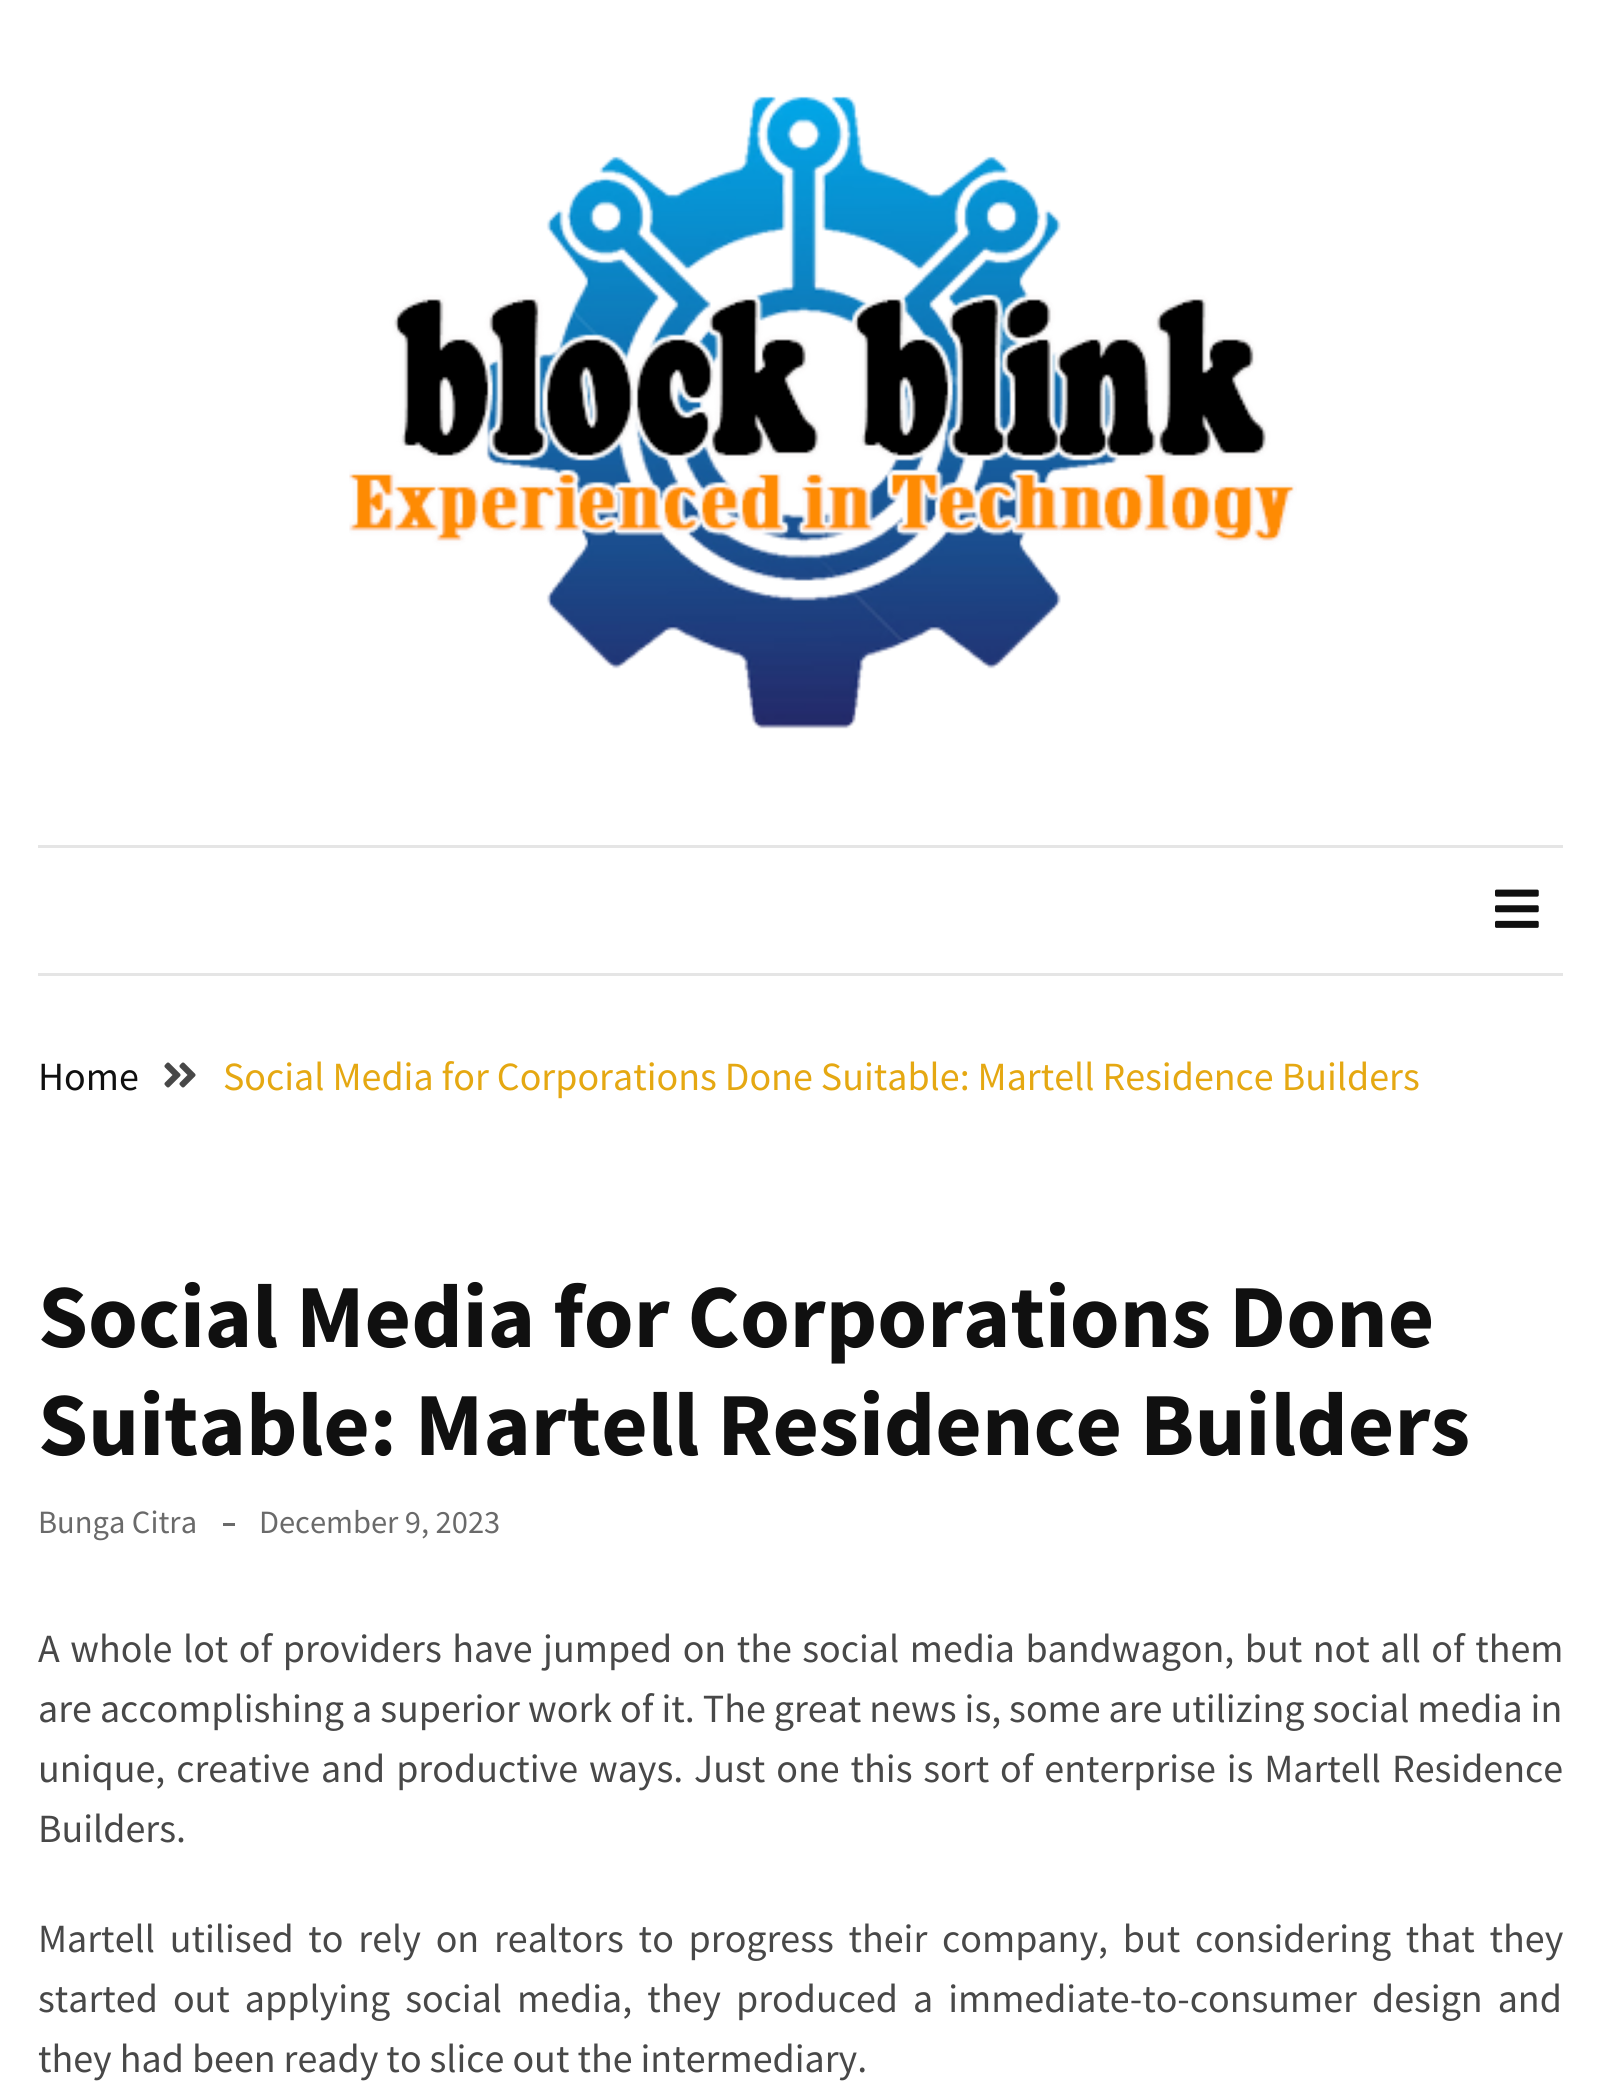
#include <cairo.h>
#include <math.h>
#include <stddef.h>

static cairo_t *ctx;

static void use_color(int r, int g, int b) {
    cairo_set_source_rgb(ctx, r / 255.0, g / 255.0, b / 255.0);
}

static void spaced_text(double x, double y, const char *s, double letter, double word) {
    cairo_move_to(ctx, x, y);
    while (*s) {
        char ch[5] = {0};
        int n = 0;
        do ch[n++] = *s++; while ((*s & 0xC0) == 0x80);
        cairo_show_text(ctx, ch);
        cairo_rel_move_to(ctx, letter + word * (*ch == ' '), 0);
    }
}

static void picture(const char *path, double x, double y, double w, double h) {
    cairo_surface_t *image = cairo_image_surface_create_from_png(path);
    cairo_save(ctx);
    cairo_set_source_surface(ctx, image, x, y);
    cairo_rectangle(ctx, x, y, w, h);
    cairo_fill(ctx);
    cairo_restore(ctx);
    cairo_surface_destroy(image);
}

int main(void) {
    cairo_surface_t *surface = cairo_image_surface_create(CAIRO_FORMAT_RGB24, 1600, 2090);
    ctx = cairo_create(surface);
    cairo_font_options_t *options = cairo_font_options_create();
    cairo_font_options_set_hint_metrics(options, CAIRO_HINT_METRICS_OFF);
    cairo_font_options_set_hint_style(options, CAIRO_HINT_STYLE_NONE);
    cairo_set_font_options(ctx, options);
    cairo_set_miter_limit(ctx, 4);
    use_color(255, 255, 255);
    cairo_paint(ctx);
    picture("img1.png", 349, 96, 948, 633);
    use_color(229, 229, 229);
    cairo_rectangle(ctx, 38, 845, 1525, 3);
    cairo_fill(ctx);
    cairo_rectangle(ctx, 38, 973, 1525, 3);
    cairo_fill(ctx);
    picture("img2.png", 1495, 889, 44, 39);
    cairo_select_font_face(ctx, "Source Sans Pro", CAIRO_FONT_SLANT_NORMAL, CAIRO_FONT_WEIGHT_NORMAL);
    cairo_set_font_size(ctx, 40);
    use_color(16, 16, 16);
    cairo_move_to(ctx, 38, 1090);
    cairo_show_text(ctx, "Home");
    picture("img3.png", 164, 1062, 32, 26);
    use_color(229, 168, 18);
    cairo_move_to(ctx, 223, 1090);
    cairo_show_text(ctx, "Social Media for Corporations Done Suitable: Martell Residence Builders");
    cairo_select_font_face(ctx, "Source Sans Pro", CAIRO_FONT_SLANT_NORMAL, CAIRO_FONT_WEIGHT_BOLD);
    cairo_set_font_size(ctx, 90);
    use_color(16, 16, 16);
    cairo_move_to(ctx, 38, 1347);
    cairo_show_text(ctx, "Social Media for Corporations Done");
    cairo_move_to(ctx, 38, 1455);
    cairo_show_text(ctx, "Suitable: Martell Residence Builders");
    cairo_select_font_face(ctx, "Source Sans Pro", CAIRO_FONT_SLANT_NORMAL, CAIRO_FONT_WEIGHT_NORMAL);
    cairo_set_font_size(ctx, 32.5);
    use_color(106, 106, 106);
    cairo_move_to(ctx, 38, 1533);
    cairo_show_text(ctx, "Bunga Citra");
    cairo_rectangle(ctx, 223, 1523, 12, 3);
    cairo_fill(ctx);
    cairo_move_to(ctx, 259, 1533);
    cairo_show_text(ctx, "December 9, 2023");
    cairo_set_font_size(ctx, 40);
    use_color(72, 72, 72);
    spaced_text(38, 1662, "A whole lot of providers have jumped on the social media bandwagon, but not all of them", 0, 2.5);
    cairo_move_to(ctx, 38, 1722);
    cairo_show_text(ctx, "are accomplishing a superior work of it. The great news is, some are utilizing social media in");
    spaced_text(38, 1782, "unique, creative and productive ways. Just one this sort of enterprise is Martell Residence", 0, 2.9);
    cairo_move_to(ctx, 38, 1842);
    cairo_show_text(ctx, "Builders.");
    spaced_text(38, 1952, "Martell utilised to rely on realtors to progress their company, but considering that they", 0, 6.75);
    spaced_text(38, 2012, "started out applying social media, they produced a immediate-to-consumer design and", 0, 7);
    cairo_move_to(ctx, 38, 2072);
    cairo_show_text(ctx, "they had been ready to slice out the intermediary.");
    cairo_surface_write_to_png(surface, "result.png");
    cairo_font_options_destroy(options);
    cairo_destroy(ctx);
    cairo_surface_destroy(surface);
    return 0;
}
